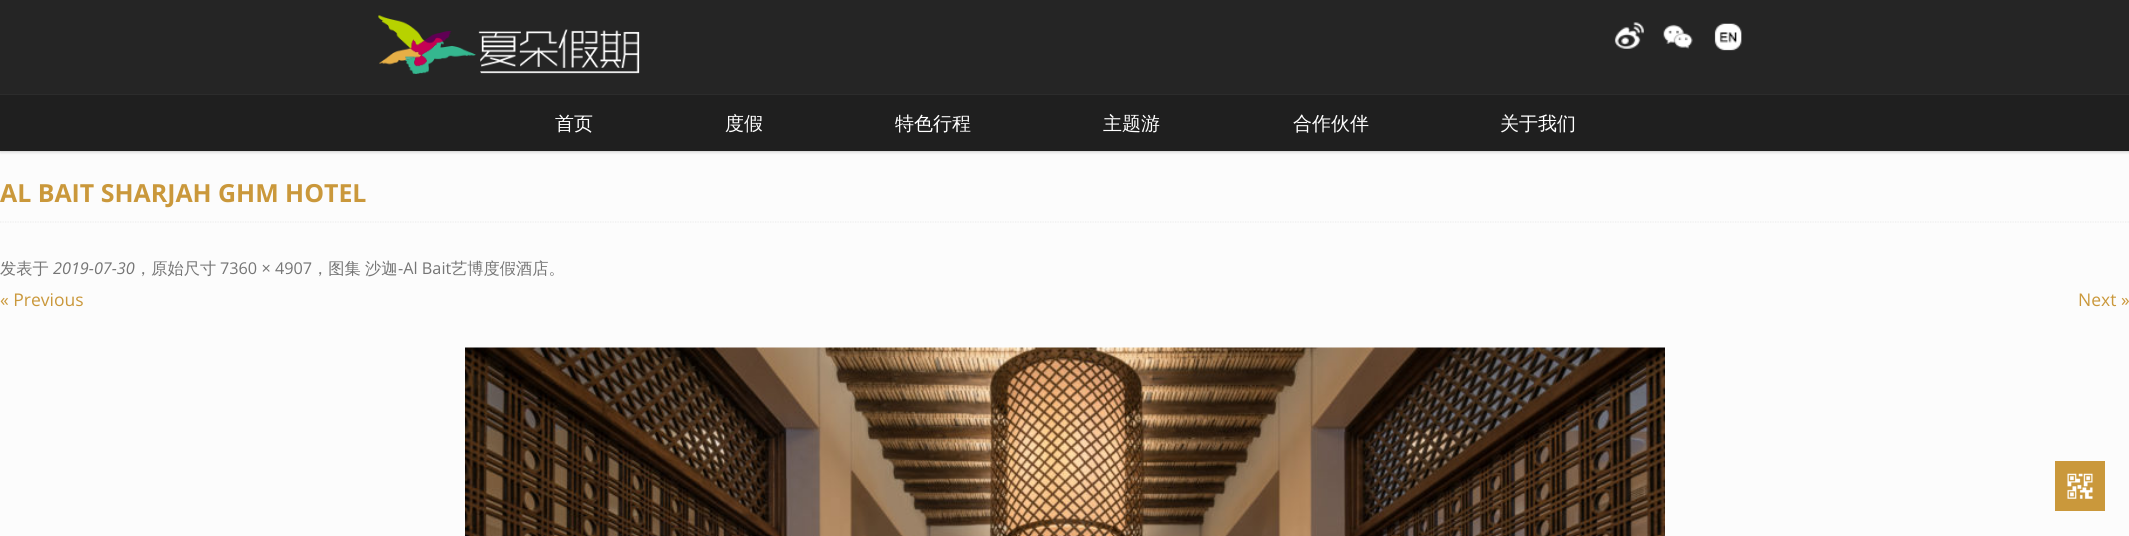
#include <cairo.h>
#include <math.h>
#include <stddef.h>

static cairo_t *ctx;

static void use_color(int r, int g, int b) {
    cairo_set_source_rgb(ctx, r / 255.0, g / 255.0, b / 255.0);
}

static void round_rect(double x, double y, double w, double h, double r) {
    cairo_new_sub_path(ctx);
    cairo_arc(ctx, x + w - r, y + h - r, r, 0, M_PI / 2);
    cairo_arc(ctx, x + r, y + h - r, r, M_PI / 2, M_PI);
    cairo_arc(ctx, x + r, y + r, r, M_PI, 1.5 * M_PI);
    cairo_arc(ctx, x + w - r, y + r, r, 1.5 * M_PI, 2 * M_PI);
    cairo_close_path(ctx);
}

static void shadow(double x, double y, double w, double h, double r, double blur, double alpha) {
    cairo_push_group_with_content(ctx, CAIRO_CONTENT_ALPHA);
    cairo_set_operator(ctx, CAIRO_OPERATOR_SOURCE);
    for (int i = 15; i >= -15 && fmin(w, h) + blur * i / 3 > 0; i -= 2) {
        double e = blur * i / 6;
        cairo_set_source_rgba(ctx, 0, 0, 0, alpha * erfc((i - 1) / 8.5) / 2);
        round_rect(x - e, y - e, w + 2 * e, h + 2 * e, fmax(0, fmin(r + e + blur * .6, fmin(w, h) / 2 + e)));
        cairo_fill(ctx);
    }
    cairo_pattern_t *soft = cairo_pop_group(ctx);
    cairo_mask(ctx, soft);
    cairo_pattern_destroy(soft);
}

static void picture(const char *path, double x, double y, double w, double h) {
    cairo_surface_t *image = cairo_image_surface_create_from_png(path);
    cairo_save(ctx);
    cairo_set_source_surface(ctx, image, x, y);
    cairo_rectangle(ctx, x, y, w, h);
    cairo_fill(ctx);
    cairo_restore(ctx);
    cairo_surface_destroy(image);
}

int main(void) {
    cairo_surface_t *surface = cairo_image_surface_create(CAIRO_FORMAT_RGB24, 2129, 536);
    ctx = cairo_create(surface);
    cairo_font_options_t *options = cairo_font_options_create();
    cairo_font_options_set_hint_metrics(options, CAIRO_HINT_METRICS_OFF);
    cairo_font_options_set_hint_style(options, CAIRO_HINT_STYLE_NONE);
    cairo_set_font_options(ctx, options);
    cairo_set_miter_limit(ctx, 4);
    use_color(252, 252, 252);
    cairo_paint(ctx);
    use_color(0, 0, 0);
    shadow(0, 1, 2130, 150, 0, 2, 0.3);
    use_color(37, 37, 37);
    cairo_rectangle(ctx, 0, 0, 2129, 94);
    cairo_fill(ctx);
    picture("img1.png", 378, 15, 262, 59);
    picture("img2.png", 1614, 22, 30, 27);
    picture("img3.png", 1663, 24, 30, 25);
    picture("img4.png", 1714, 23, 28, 28);
    use_color(31, 31, 31);
    cairo_rectangle(ctx, 0, 95, 2129, 56);
    cairo_fill(ctx);
    use_color(44, 44, 44);
    cairo_rectangle(ctx, 0, 94, 2129, 1);
    cairo_fill(ctx);
    cairo_select_font_face(ctx, "WenQuanYi Zen Hei Medium", CAIRO_FONT_SLANT_NORMAL, CAIRO_FONT_WEIGHT_NORMAL);
    cairo_set_font_size(ctx, 19);
    use_color(255, 255, 255);
    cairo_move_to(ctx, 555, 130);
    cairo_show_text(ctx, "首页");
    cairo_move_to(ctx, 725, 130);
    cairo_show_text(ctx, "度假");
    cairo_move_to(ctx, 895, 130);
    cairo_show_text(ctx, "特色行程");
    cairo_move_to(ctx, 1103, 130);
    cairo_show_text(ctx, "主题游");
    cairo_move_to(ctx, 1293, 130);
    cairo_show_text(ctx, "合作伙伴");
    cairo_move_to(ctx, 1500, 130);
    cairo_show_text(ctx, "关于我们");
    cairo_new_path(ctx);
    cairo_move_to(ctx, 0, 222);
    cairo_line_to(ctx, 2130, 222);
    use_color(237, 237, 237);
    cairo_set_line_width(ctx, 1.2);
    cairo_set_dash(ctx, (double[]){1.25, 1.25}, 2, 0);
    cairo_stroke(ctx);
    cairo_select_font_face(ctx, "Open Sans", CAIRO_FONT_SLANT_NORMAL, CAIRO_FONT_WEIGHT_BOLD);
    cairo_set_font_size(ctx, 24.9);
    use_color(202, 152, 59);
    cairo_move_to(ctx, 0, 202);
    cairo_show_text(ctx, "AL BAIT SHARJAH GHM HOTEL");
    cairo_select_font_face(ctx, "WenQuanYi Zen Hei Medium", CAIRO_FONT_SLANT_NORMAL, CAIRO_FONT_WEIGHT_NORMAL);
    cairo_set_font_size(ctx, 16.25);
    use_color(117, 117, 117);
    cairo_move_to(ctx, 0, 274);
    cairo_show_text(ctx, "发表于");
    cairo_select_font_face(ctx, "Open Sans", CAIRO_FONT_SLANT_ITALIC, CAIRO_FONT_WEIGHT_NORMAL);
    cairo_move_to(ctx, 53, 274);
    cairo_show_text(ctx, "2019-07-30");
    cairo_select_font_face(ctx, "WenQuanYi Zen Hei Medium", CAIRO_FONT_SLANT_NORMAL, CAIRO_FONT_WEIGHT_NORMAL);
    cairo_move_to(ctx, 135, 274);
    cairo_show_text(ctx, "，原始尺寸");
    cairo_select_font_face(ctx, "Open Sans", CAIRO_FONT_SLANT_NORMAL, CAIRO_FONT_WEIGHT_NORMAL);
    cairo_move_to(ctx, 220, 274);
    cairo_show_text(ctx, "7360 × 4907");
    cairo_select_font_face(ctx, "WenQuanYi Zen Hei Medium", CAIRO_FONT_SLANT_NORMAL, CAIRO_FONT_WEIGHT_NORMAL);
    cairo_move_to(ctx, 312, 274);
    cairo_show_text(ctx, "，图集");
    cairo_move_to(ctx, 365, 274);
    cairo_show_text(ctx, "沙迦");
    cairo_select_font_face(ctx, "Open Sans", CAIRO_FONT_SLANT_NORMAL, CAIRO_FONT_WEIGHT_NORMAL);
    cairo_move_to(ctx, 398, 274);
    cairo_show_text(ctx, "-Al Bait");
    cairo_select_font_face(ctx, "WenQuanYi Zen Hei Medium", CAIRO_FONT_SLANT_NORMAL, CAIRO_FONT_WEIGHT_NORMAL);
    cairo_move_to(ctx, 451, 274);
    cairo_show_text(ctx, "艺博度假酒店。");
    cairo_select_font_face(ctx, "Open Sans", CAIRO_FONT_SLANT_NORMAL, CAIRO_FONT_WEIGHT_NORMAL);
    cairo_set_font_size(ctx, 17.5);
    use_color(202, 152, 59);
    cairo_move_to(ctx, 0, 306);
    cairo_show_text(ctx, "« Previous");
    cairo_move_to(ctx, 2078, 306);
    cairo_show_text(ctx, "Next »");
    picture("img5.png", 465, 347, 1200, 189);
    cairo_rectangle(ctx, 2055, 461, 50, 50);
    cairo_fill(ctx);
    picture("img6.png", 2067, 473, 26, 26);
    cairo_surface_write_to_png(surface, "result.png");
    cairo_font_options_destroy(options);
    cairo_destroy(ctx);
    cairo_surface_destroy(surface);
    return 0;
}
